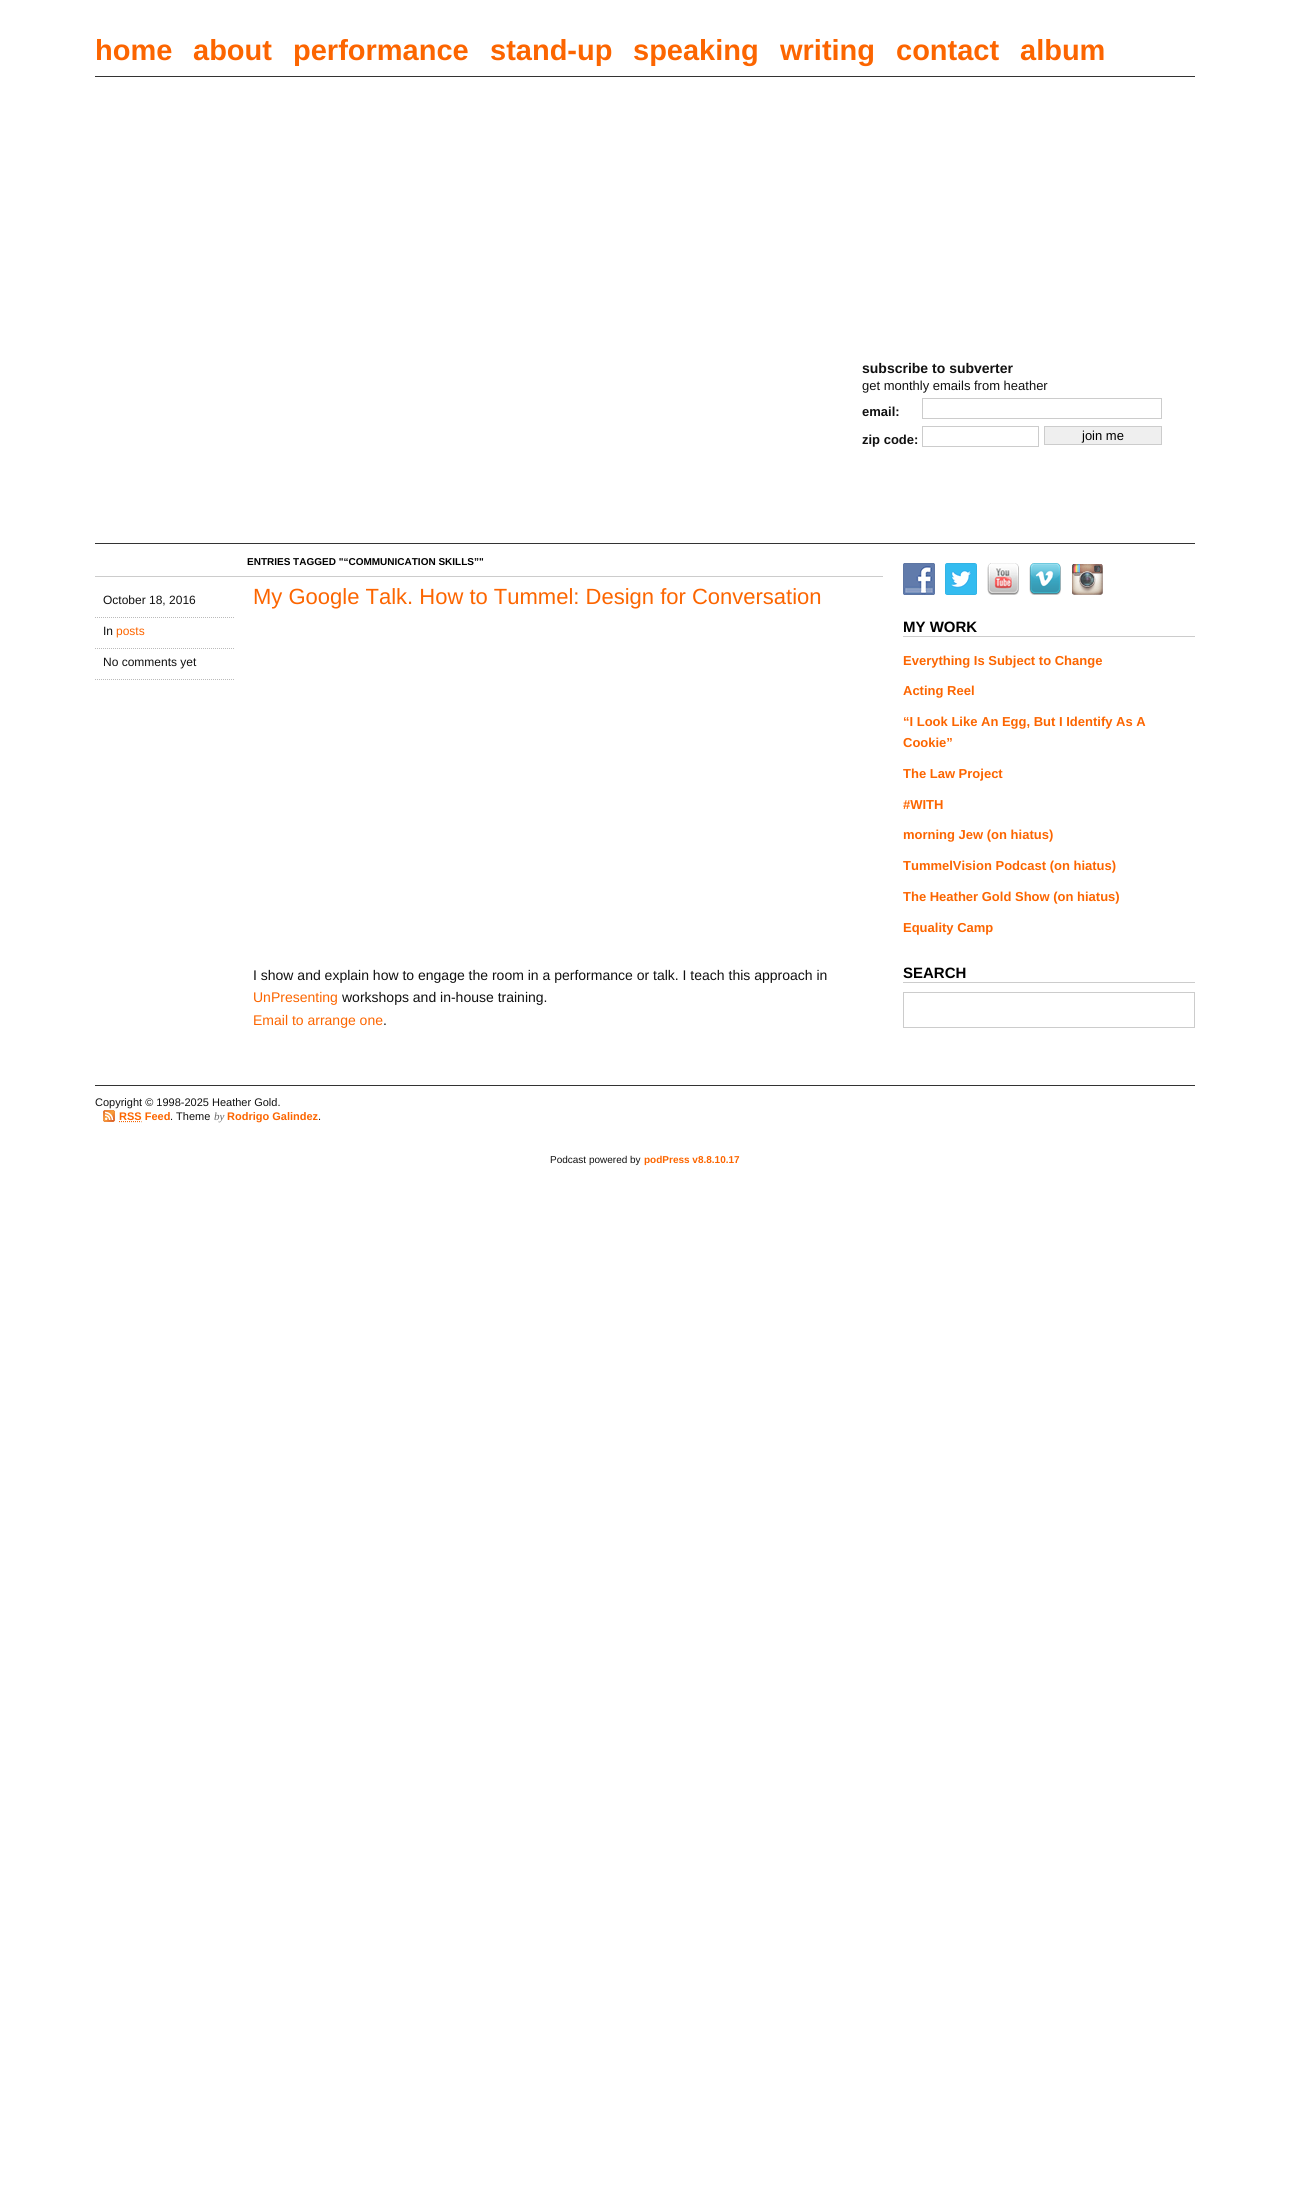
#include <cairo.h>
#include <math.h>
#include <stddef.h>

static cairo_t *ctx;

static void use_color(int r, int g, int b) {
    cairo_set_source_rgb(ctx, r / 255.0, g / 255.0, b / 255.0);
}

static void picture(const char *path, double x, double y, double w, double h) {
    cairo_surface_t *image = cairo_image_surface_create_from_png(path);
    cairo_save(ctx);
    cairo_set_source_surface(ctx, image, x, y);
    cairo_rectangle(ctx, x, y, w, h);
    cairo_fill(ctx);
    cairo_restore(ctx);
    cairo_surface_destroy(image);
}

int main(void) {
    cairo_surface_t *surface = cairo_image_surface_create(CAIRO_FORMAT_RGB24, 1290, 2187);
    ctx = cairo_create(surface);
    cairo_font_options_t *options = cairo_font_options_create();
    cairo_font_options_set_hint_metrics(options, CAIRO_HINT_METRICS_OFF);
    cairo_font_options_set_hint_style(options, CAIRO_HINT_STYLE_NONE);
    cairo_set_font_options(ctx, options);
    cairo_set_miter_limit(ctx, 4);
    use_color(255, 255, 255);
    cairo_paint(ctx);
    cairo_select_font_face(ctx, "Liberation Sans", CAIRO_FONT_SLANT_NORMAL, CAIRO_FONT_WEIGHT_BOLD);
    cairo_set_font_size(ctx, 29);
    use_color(252, 101, 0);
    cairo_move_to(ctx, 95, 60);
    cairo_show_text(ctx, "home");
    cairo_move_to(ctx, 193, 60);
    cairo_show_text(ctx, "about");
    cairo_move_to(ctx, 293, 60);
    cairo_show_text(ctx, "performance");
    cairo_move_to(ctx, 490, 60);
    cairo_show_text(ctx, "stand-up");
    cairo_move_to(ctx, 633, 60);
    cairo_show_text(ctx, "speaking");
    cairo_move_to(ctx, 780, 60);
    cairo_show_text(ctx, "writing");
    cairo_move_to(ctx, 896, 60);
    cairo_show_text(ctx, "contact");
    cairo_move_to(ctx, 1020, 60);
    cairo_show_text(ctx, "album");
    use_color(51, 51, 51);
    cairo_rectangle(ctx, 95, 76, 1100, 1);
    cairo_fill(ctx);
    cairo_rectangle(ctx, 95, 543, 1100, 1);
    cairo_fill(ctx);
    cairo_set_font_size(ctx, 14);
    use_color(17, 17, 17);
    cairo_move_to(ctx, 862, 373);
    cairo_show_text(ctx, "subscribe to subverter");
    cairo_select_font_face(ctx, "Liberation Sans", CAIRO_FONT_SLANT_NORMAL, CAIRO_FONT_WEIGHT_NORMAL);
    cairo_set_font_size(ctx, 13);
    cairo_move_to(ctx, 862, 390);
    cairo_show_text(ctx, "get monthly emails from heather");
    cairo_select_font_face(ctx, "Liberation Sans", CAIRO_FONT_SLANT_NORMAL, CAIRO_FONT_WEIGHT_BOLD);
    cairo_move_to(ctx, 862, 416);
    cairo_show_text(ctx, "email:");
    cairo_rectangle(ctx, 922.5, 398.5, 239, 20);
    use_color(204, 204, 204);
    cairo_set_line_width(ctx, 1);
    cairo_stroke(ctx);
    use_color(17, 17, 17);
    cairo_move_to(ctx, 862, 444);
    cairo_show_text(ctx, "zip code:");
    cairo_rectangle(ctx, 922.5, 426.5, 116, 20);
    use_color(204, 204, 204);
    cairo_stroke(ctx);
    use_color(239, 239, 239);
    cairo_rectangle(ctx, 1044.5, 426.5, 117, 18);
    cairo_fill_preserve(ctx);
    use_color(204, 204, 204);
    cairo_stroke(ctx);
    cairo_select_font_face(ctx, "Liberation Sans", CAIRO_FONT_SLANT_NORMAL, CAIRO_FONT_WEIGHT_NORMAL);
    use_color(0, 0, 0);
    cairo_move_to(ctx, 1082, 440);
    cairo_show_text(ctx, "join me");
    cairo_select_font_face(ctx, "Liberation Sans", CAIRO_FONT_SLANT_NORMAL, CAIRO_FONT_WEIGHT_BOLD);
    cairo_set_font_size(ctx, 10);
    cairo_move_to(ctx, 247, 565);
    cairo_show_text(ctx, "ENTRIES TAGGED \"“COMMUNICATION SKILLS”\"");
    use_color(204, 204, 204);
    cairo_rectangle(ctx, 95, 576, 788, 1);
    cairo_fill(ctx);
    cairo_new_path(ctx);
    cairo_move_to(ctx, 95, 617.5);
    cairo_line_to(ctx, 235, 617.5);
    use_color(187, 187, 187);
    cairo_set_dash(ctx, (double[]){1, 1}, 2, 0);
    cairo_stroke(ctx);
    cairo_select_font_face(ctx, "Liberation Sans", CAIRO_FONT_SLANT_NORMAL, CAIRO_FONT_WEIGHT_NORMAL);
    cairo_set_font_size(ctx, 12);
    use_color(17, 17, 17);
    cairo_move_to(ctx, 103, 604);
    cairo_show_text(ctx, "October 18, 2016");
    cairo_new_path(ctx);
    cairo_move_to(ctx, 95, 648.5);
    cairo_line_to(ctx, 235, 648.5);
    use_color(187, 187, 187);
    cairo_stroke(ctx);
    use_color(17, 17, 17);
    cairo_move_to(ctx, 103, 635);
    cairo_show_text(ctx, "In");
    use_color(252, 101, 0);
    cairo_move_to(ctx, 116, 635);
    cairo_show_text(ctx, "posts");
    cairo_new_path(ctx);
    cairo_move_to(ctx, 95, 679.5);
    cairo_line_to(ctx, 235, 679.5);
    use_color(187, 187, 187);
    cairo_stroke(ctx);
    use_color(17, 17, 17);
    cairo_move_to(ctx, 103, 666);
    cairo_show_text(ctx, "No comments yet");
    cairo_set_font_size(ctx, 22);
    use_color(252, 101, 0);
    cairo_move_to(ctx, 253, 604);
    cairo_show_text(ctx, "My Google Talk. How to Tummel: Design for Conversation");
    cairo_set_font_size(ctx, 14);
    use_color(17, 17, 17);
    cairo_move_to(ctx, 253, 980);
    cairo_show_text(ctx, "I show and explain how to engage the room in a performance or talk. I teach this approach in");
    use_color(252, 101, 0);
    cairo_move_to(ctx, 253, 1002);
    cairo_show_text(ctx, "UnPresenting");
    use_color(17, 17, 17);
    cairo_move_to(ctx, 342, 1002);
    cairo_show_text(ctx, "workshops and in-house training.");
    use_color(252, 101, 0);
    cairo_move_to(ctx, 253, 1025);
    cairo_show_text(ctx, "Email to arrange one");
    use_color(17, 17, 17);
    cairo_move_to(ctx, 383, 1025);
    cairo_show_text(ctx, ".");
    picture("img1.png", 903, 563, 32, 32);
    picture("img2.png", 945, 563, 32, 32);
    picture("img3.png", 987, 563, 32, 32);
    picture("img4.png", 1029, 563, 32, 32);
    picture("img5.png", 1072, 564, 31, 31);
    use_color(204, 204, 204);
    cairo_rectangle(ctx, 903, 636, 292, 1);
    cairo_fill(ctx);
    cairo_select_font_face(ctx, "Liberation Sans", CAIRO_FONT_SLANT_NORMAL, CAIRO_FONT_WEIGHT_BOLD);
    cairo_set_font_size(ctx, 15);
    use_color(0, 0, 0);
    cairo_move_to(ctx, 903, 632);
    cairo_show_text(ctx, "MY WORK");
    cairo_set_font_size(ctx, 13);
    use_color(252, 101, 0);
    cairo_move_to(ctx, 903, 665);
    cairo_show_text(ctx, "Everything Is Subject to Change");
    cairo_move_to(ctx, 903, 695);
    cairo_show_text(ctx, "Acting Reel");
    cairo_move_to(ctx, 903, 726);
    cairo_show_text(ctx, "“I Look Like An Egg, But I Identify As A");
    cairo_move_to(ctx, 903, 747);
    cairo_show_text(ctx, "Cookie”");
    cairo_move_to(ctx, 903, 778);
    cairo_show_text(ctx, "The Law Project");
    cairo_move_to(ctx, 903, 809);
    cairo_show_text(ctx, "#WITH");
    cairo_move_to(ctx, 903, 839);
    cairo_show_text(ctx, "morning Jew (on hiatus)");
    cairo_move_to(ctx, 903, 870);
    cairo_show_text(ctx, "TummelVision Podcast (on hiatus)");
    cairo_move_to(ctx, 903, 901);
    cairo_show_text(ctx, "The Heather Gold Show (on hiatus)");
    cairo_move_to(ctx, 903, 932);
    cairo_show_text(ctx, "Equality Camp");
    use_color(204, 204, 204);
    cairo_rectangle(ctx, 903, 982, 292, 1);
    cairo_fill(ctx);
    cairo_set_font_size(ctx, 15);
    use_color(0, 0, 0);
    cairo_move_to(ctx, 903, 978);
    cairo_show_text(ctx, "SEARCH");
    cairo_rectangle(ctx, 903.5, 992.5, 291, 35);
    use_color(204, 204, 204);
    cairo_set_dash(ctx, NULL, 0, 0);
    cairo_stroke(ctx);
    use_color(51, 51, 51);
    cairo_rectangle(ctx, 95, 1085, 1100, 1);
    cairo_fill(ctx);
    cairo_select_font_face(ctx, "Liberation Sans", CAIRO_FONT_SLANT_NORMAL, CAIRO_FONT_WEIGHT_NORMAL);
    cairo_set_font_size(ctx, 11);
    use_color(17, 17, 17);
    cairo_move_to(ctx, 95, 1106);
    cairo_show_text(ctx, "Copyright © 1998-2025 Heather Gold.");
    picture("img6.png", 103, 1110, 12, 12);
    cairo_select_font_face(ctx, "Liberation Sans", CAIRO_FONT_SLANT_NORMAL, CAIRO_FONT_WEIGHT_BOLD);
    use_color(252, 101, 0);
    cairo_move_to(ctx, 119, 1120);
    cairo_show_text(ctx, "RSS Feed");
    cairo_new_path(ctx);
    cairo_move_to(ctx, 119, 1122.5);
    cairo_line_to(ctx, 142, 1122.5);
    use_color(238, 238, 238);
    cairo_set_dash(ctx, (double[]){1, 1}, 2, 0);
    cairo_stroke(ctx);
    cairo_new_path(ctx);
    cairo_move_to(ctx, 119, 1121.5);
    cairo_line_to(ctx, 141.5, 1121.5);
    use_color(252, 101, 0);
    cairo_stroke(ctx);
    cairo_select_font_face(ctx, "Liberation Sans", CAIRO_FONT_SLANT_NORMAL, CAIRO_FONT_WEIGHT_NORMAL);
    use_color(17, 17, 17);
    cairo_move_to(ctx, 170, 1120);
    cairo_show_text(ctx, ". Theme");
    cairo_select_font_face(ctx, "Liberation Serif", CAIRO_FONT_SLANT_ITALIC, CAIRO_FONT_WEIGHT_NORMAL);
    use_color(102, 102, 102);
    cairo_move_to(ctx, 214, 1120);
    cairo_show_text(ctx, "by");
    cairo_select_font_face(ctx, "Liberation Sans", CAIRO_FONT_SLANT_NORMAL, CAIRO_FONT_WEIGHT_BOLD);
    use_color(252, 101, 0);
    cairo_move_to(ctx, 227, 1120);
    cairo_show_text(ctx, "Rodrigo Galindez");
    cairo_select_font_face(ctx, "Liberation Sans", CAIRO_FONT_SLANT_NORMAL, CAIRO_FONT_WEIGHT_NORMAL);
    use_color(17, 17, 17);
    cairo_move_to(ctx, 318, 1120);
    cairo_show_text(ctx, ".");
    cairo_set_font_size(ctx, 10);
    cairo_move_to(ctx, 550, 1163);
    cairo_show_text(ctx, "Podcast powered by");
    cairo_select_font_face(ctx, "Liberation Sans", CAIRO_FONT_SLANT_NORMAL, CAIRO_FONT_WEIGHT_BOLD);
    use_color(252, 101, 0);
    cairo_move_to(ctx, 644, 1163);
    cairo_show_text(ctx, "podPress v8.8.10.17");
    cairo_surface_write_to_png(surface, "result.png");
    cairo_font_options_destroy(options);
    cairo_destroy(ctx);
    cairo_surface_destroy(surface);
    return 0;
}
